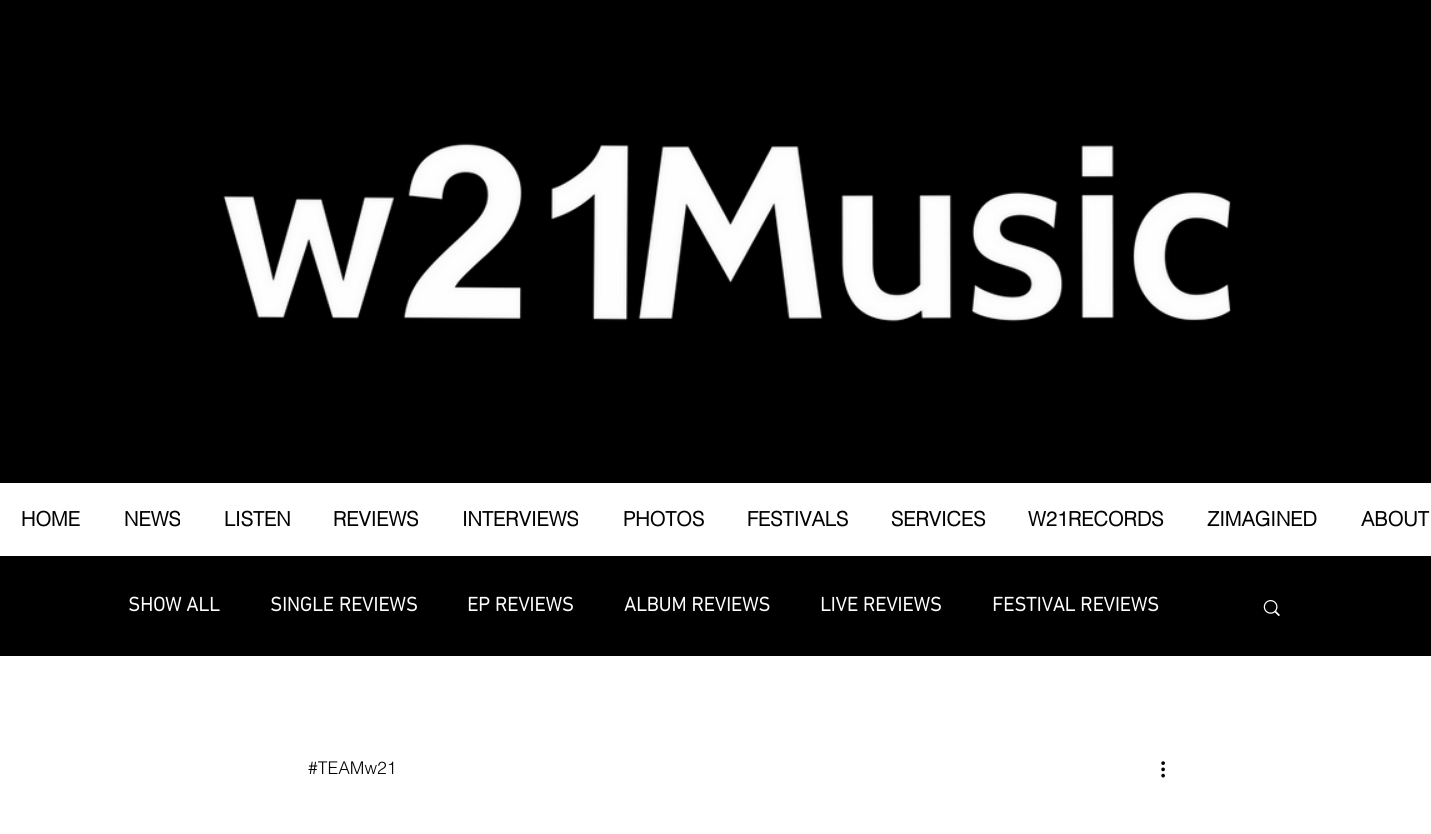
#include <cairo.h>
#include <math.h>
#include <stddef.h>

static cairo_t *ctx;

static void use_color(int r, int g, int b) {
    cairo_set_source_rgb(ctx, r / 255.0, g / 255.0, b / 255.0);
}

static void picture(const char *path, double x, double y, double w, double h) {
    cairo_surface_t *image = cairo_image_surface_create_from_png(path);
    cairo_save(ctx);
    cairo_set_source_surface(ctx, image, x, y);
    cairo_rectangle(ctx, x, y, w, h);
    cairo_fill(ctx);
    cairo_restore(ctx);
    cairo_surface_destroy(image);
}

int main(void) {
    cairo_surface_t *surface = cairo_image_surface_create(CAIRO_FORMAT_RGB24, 1431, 834);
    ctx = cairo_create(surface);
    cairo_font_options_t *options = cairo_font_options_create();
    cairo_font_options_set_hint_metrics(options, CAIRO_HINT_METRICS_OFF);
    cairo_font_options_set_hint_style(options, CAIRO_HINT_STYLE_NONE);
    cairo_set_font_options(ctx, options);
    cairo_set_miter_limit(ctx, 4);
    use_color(255, 255, 255);
    cairo_paint(ctx);
    use_color(0, 0, 0);
    cairo_rectangle(ctx, 0, 0, 1431, 483);
    cairo_fill(ctx);
    use_color(2, 2, 2);
    cairo_rectangle(ctx, 0, 556, 1431, 1);
    cairo_fill(ctx);
    picture("img1.png", 223, 143, 1008, 179);
    cairo_select_font_face(ctx, "helvetica", CAIRO_FONT_SLANT_NORMAL, CAIRO_FONT_WEIGHT_BOLD);
    cairo_set_font_size(ctx, 20);
    cairo_move_to(ctx, 21, 526);
    cairo_show_text(ctx, "HOME");
    cairo_move_to(ctx, 124, 526);
    cairo_show_text(ctx, "NEWS");
    cairo_move_to(ctx, 224, 526);
    cairo_show_text(ctx, "LISTEN");
    cairo_move_to(ctx, 333, 526);
    cairo_show_text(ctx, "REVIEWS");
    cairo_move_to(ctx, 462, 526);
    cairo_show_text(ctx, "INTERVIEWS");
    cairo_move_to(ctx, 623, 526);
    cairo_show_text(ctx, "PHOTOS");
    cairo_move_to(ctx, 747, 526);
    cairo_show_text(ctx, "FESTIVALS");
    cairo_move_to(ctx, 891, 526);
    cairo_show_text(ctx, "SERVICES");
    cairo_move_to(ctx, 1028, 526);
    cairo_show_text(ctx, "W21RECORDS");
    cairo_move_to(ctx, 1207, 526);
    cairo_show_text(ctx, "ZIMAGINED");
    cairo_move_to(ctx, 1361, 526);
    cairo_show_text(ctx, "ABOUT");
    use_color(0, 0, 0);
    cairo_rectangle(ctx, 0, 557, 1431, 99);
    cairo_fill(ctx);
    cairo_select_font_face(ctx, "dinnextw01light", CAIRO_FONT_SLANT_NORMAL, CAIRO_FONT_WEIGHT_BOLD);
    use_color(255, 255, 255);
    cairo_move_to(ctx, 128, 611);
    cairo_show_text(ctx, "SHOW ALL");
    cairo_move_to(ctx, 270, 611);
    cairo_show_text(ctx, "SINGLE REVIEWS");
    cairo_move_to(ctx, 467, 611);
    cairo_show_text(ctx, "EP REVIEWS");
    cairo_move_to(ctx, 624, 611);
    cairo_show_text(ctx, "ALBUM REVIEWS");
    cairo_move_to(ctx, 820, 611);
    cairo_show_text(ctx, "LIVE REVIEWS");
    cairo_move_to(ctx, 992, 611);
    cairo_show_text(ctx, "FESTIVAL REVIEWS");
    picture("img2.png", 1263, 600, 17, 17);
    cairo_select_font_face(ctx, "helvetica Light", CAIRO_FONT_SLANT_NORMAL, CAIRO_FONT_WEIGHT_NORMAL);
    cairo_set_font_size(ctx, 17.5);
    use_color(2, 2, 2);
    cairo_move_to(ctx, 308, 774);
    cairo_show_text(ctx, "#TEAMw21");
    picture("img3.png", 1161, 761, 4, 17);
    cairo_surface_write_to_png(surface, "result.png");
    cairo_font_options_destroy(options);
    cairo_destroy(ctx);
    cairo_surface_destroy(surface);
    return 0;
}
